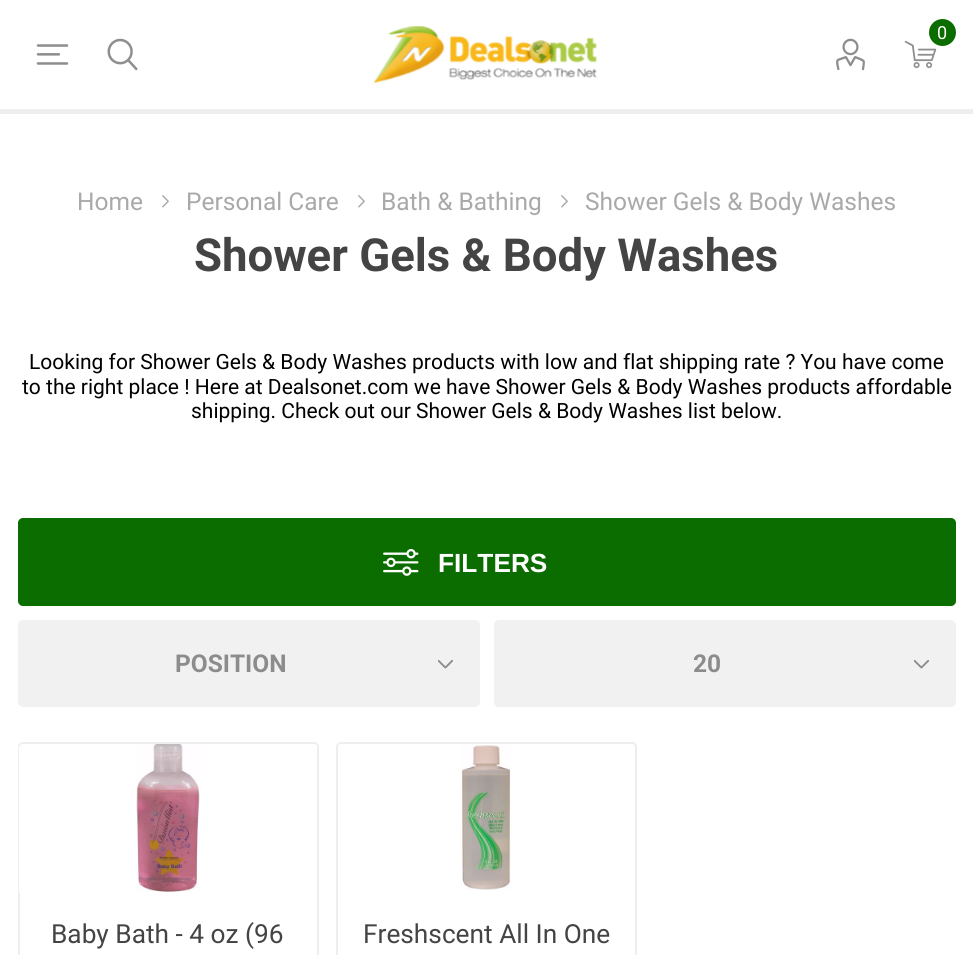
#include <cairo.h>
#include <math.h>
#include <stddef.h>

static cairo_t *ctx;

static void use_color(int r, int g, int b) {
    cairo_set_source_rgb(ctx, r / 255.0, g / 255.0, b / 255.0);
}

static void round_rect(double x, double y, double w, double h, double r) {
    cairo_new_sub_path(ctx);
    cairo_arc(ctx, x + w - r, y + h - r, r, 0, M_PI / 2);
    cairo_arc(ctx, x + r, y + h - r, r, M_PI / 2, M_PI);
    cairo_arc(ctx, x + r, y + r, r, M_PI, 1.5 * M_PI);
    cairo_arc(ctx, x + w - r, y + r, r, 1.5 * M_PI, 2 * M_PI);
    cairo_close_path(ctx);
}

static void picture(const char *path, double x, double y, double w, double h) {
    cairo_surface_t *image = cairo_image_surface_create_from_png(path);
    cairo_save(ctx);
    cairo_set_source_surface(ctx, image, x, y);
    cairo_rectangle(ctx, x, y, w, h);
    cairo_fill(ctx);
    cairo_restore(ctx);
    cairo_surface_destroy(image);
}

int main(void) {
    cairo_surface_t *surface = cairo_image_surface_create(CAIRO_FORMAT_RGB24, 973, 955);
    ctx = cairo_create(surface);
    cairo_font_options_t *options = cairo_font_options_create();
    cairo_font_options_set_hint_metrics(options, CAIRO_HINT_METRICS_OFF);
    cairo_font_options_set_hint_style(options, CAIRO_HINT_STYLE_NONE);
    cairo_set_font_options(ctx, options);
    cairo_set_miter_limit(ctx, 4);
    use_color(255, 255, 255);
    cairo_paint(ctx);
    use_color(238, 238, 238);
    cairo_rectangle(ctx, 0, 109, 973, 5);
    cairo_fill(ctx);
    picture("img1.png", 373, 26, 224, 58);
    picture("img2.png", 904, 40, 33, 29);
    use_color(11, 108, 0);
    cairo_arc(ctx, 942.5, 32.5, 13.5, 0, 2 * M_PI);
    cairo_fill(ctx);
    cairo_select_font_face(ctx, "Roboto", CAIRO_FONT_SLANT_NORMAL, CAIRO_FONT_WEIGHT_NORMAL);
    cairo_set_font_size(ctx, 18);
    use_color(255, 255, 255);
    cairo_move_to(ctx, 937, 39);
    cairo_show_text(ctx, "0");
    picture("img3.png", 36, 44, 33, 21);
    picture("img4.png", 107, 38, 31, 33);
    picture("img5.png", 836, 38, 29, 33);
    cairo_set_font_size(ctx, 24.5);
    use_color(169, 169, 169);
    cairo_move_to(ctx, 77, 210);
    cairo_show_text(ctx, "Home");
    picture("img6.png", 162, 195, 7, 13);
    cairo_move_to(ctx, 186, 210);
    cairo_show_text(ctx, "Personal Care");
    picture("img6.png", 358, 195, 7, 13);
    cairo_move_to(ctx, 381, 210);
    cairo_show_text(ctx, "Bath & Bathing");
    picture("img6.png", 561, 195, 7, 13);
    cairo_move_to(ctx, 585, 210);
    cairo_show_text(ctx, "Shower Gels & Body Washes");
    cairo_select_font_face(ctx, "Roboto", CAIRO_FONT_SLANT_NORMAL, CAIRO_FONT_WEIGHT_BOLD);
    cairo_set_font_size(ctx, 45.5);
    use_color(68, 68, 68);
    cairo_move_to(ctx, 194, 271);
    cairo_show_text(ctx, "Shower Gels & Body Washes");
    cairo_select_font_face(ctx, "Roboto", CAIRO_FONT_SLANT_NORMAL, CAIRO_FONT_WEIGHT_NORMAL);
    cairo_set_font_size(ctx, 21);
    use_color(0, 0, 0);
    cairo_move_to(ctx, 29, 369);
    cairo_show_text(ctx, "Looking for Shower Gels & Body Washes products with low and flat shipping rate ? You have come");
    cairo_move_to(ctx, 22, 394);
    cairo_show_text(ctx, "to the right place ! Here at Dealsonet.com we have Shower Gels & Body Washes products affordable");
    cairo_move_to(ctx, 191, 418);
    cairo_show_text(ctx, "shipping. Check out our Shower Gels & Body Washes list below.");
    use_color(11, 108, 0);
    round_rect(18, 518, 938, 88, 5);
    cairo_fill(ctx);
    picture("img7.png", 383, 549, 36, 27);
    cairo_select_font_face(ctx, "Liberation Sans", CAIRO_FONT_SLANT_NORMAL, CAIRO_FONT_WEIGHT_BOLD);
    cairo_set_font_size(ctx, 26.25);
    use_color(255, 255, 255);
    cairo_move_to(ctx, 438, 572);
    cairo_show_text(ctx, "FILTERS");
    use_color(241, 241, 241);
    round_rect(18, 620, 462, 87, 5);
    cairo_fill(ctx);
    picture("img8.png", 438, 660, 15, 9);
    cairo_select_font_face(ctx, "Roboto", CAIRO_FONT_SLANT_NORMAL, CAIRO_FONT_WEIGHT_BOLD);
    cairo_set_font_size(ctx, 24.5);
    use_color(140, 140, 140);
    cairo_move_to(ctx, 175, 672);
    cairo_show_text(ctx, "POSITION");
    use_color(241, 241, 241);
    round_rect(494, 620, 462, 87, 5);
    cairo_fill(ctx);
    picture("img8.png", 914, 660, 15, 9);
    use_color(140, 140, 140);
    cairo_move_to(ctx, 693, 672);
    cairo_show_text(ctx, "20");
    round_rect(19, 743, 299, 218, 4);
    use_color(238, 238, 238);
    cairo_stroke(ctx);
    use_color(255, 255, 255);
    cairo_new_path(ctx);
    cairo_move_to(ctx, 23, 744);
    cairo_line_to(ctx, 313, 744);
    cairo_curve_to(ctx, 315, 744, 317, 746, 317, 748);
    cairo_line_to(ctx, 317, 893);
    cairo_line_to(ctx, 19, 893);
    cairo_line_to(ctx, 19, 748);
    cairo_curve_to(ctx, 19, 746, 21, 744, 23, 744);
    cairo_close_path(ctx);
    cairo_fill(ctx);
    picture("img9.png", 136, 744, 64, 148);
    cairo_select_font_face(ctx, "Roboto", CAIRO_FONT_SLANT_NORMAL, CAIRO_FONT_WEIGHT_NORMAL);
    cairo_set_font_size(ctx, 26.25);
    use_color(68, 68, 68);
    cairo_move_to(ctx, 51, 943);
    cairo_show_text(ctx, "Baby Bath - 4 oz (96");
    round_rect(337, 743, 299, 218, 4);
    use_color(238, 238, 238);
    cairo_stroke(ctx);
    picture("img10.png", 460, 745, 51, 145);
    use_color(68, 68, 68);
    cairo_move_to(ctx, 363, 943);
    cairo_show_text(ctx, "Freshscent All In One");
    cairo_surface_write_to_png(surface, "result.png");
    cairo_font_options_destroy(options);
    cairo_destroy(ctx);
    cairo_surface_destroy(surface);
    return 0;
}
